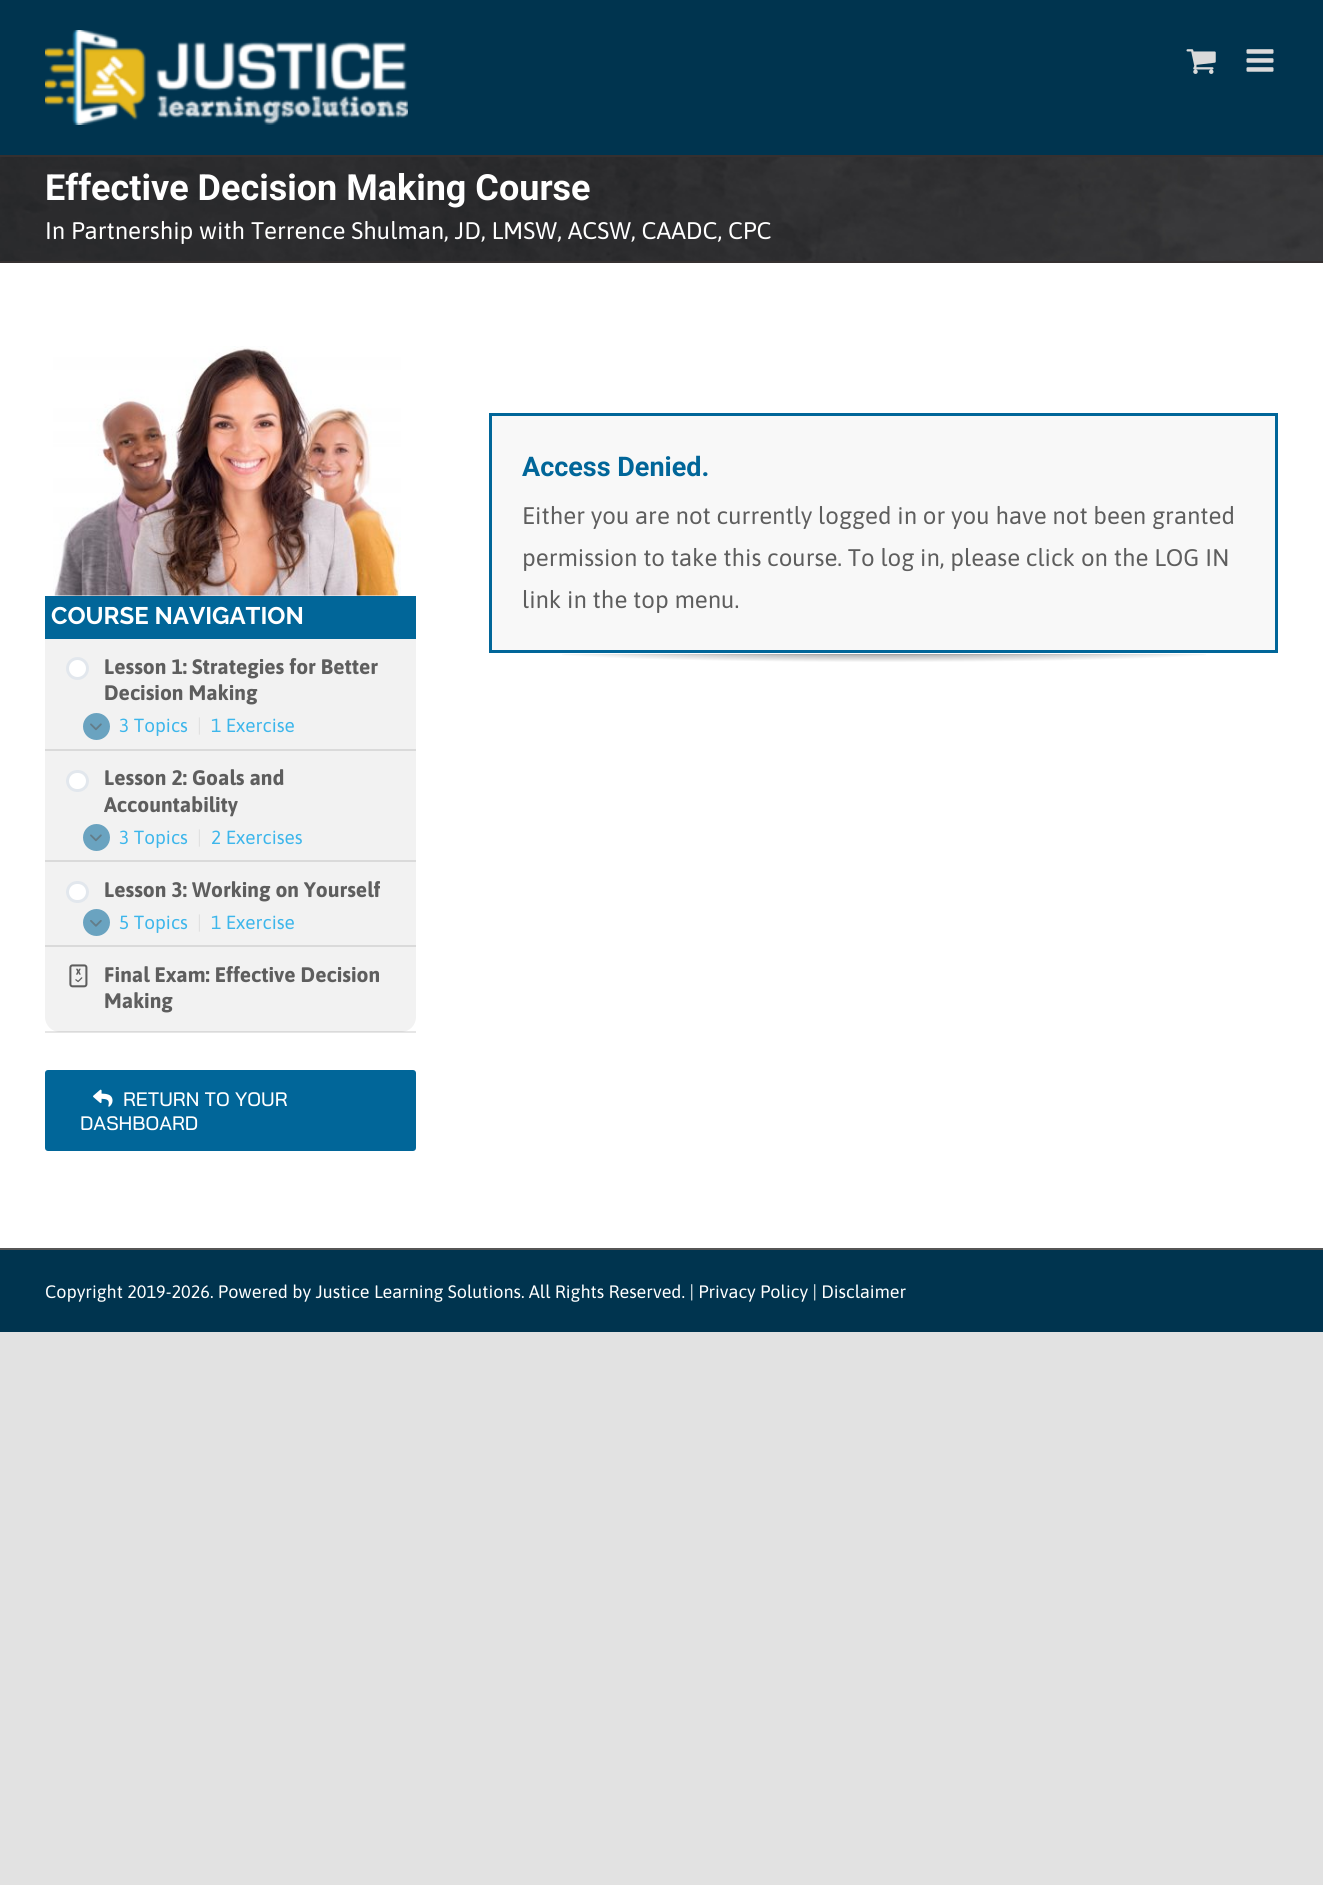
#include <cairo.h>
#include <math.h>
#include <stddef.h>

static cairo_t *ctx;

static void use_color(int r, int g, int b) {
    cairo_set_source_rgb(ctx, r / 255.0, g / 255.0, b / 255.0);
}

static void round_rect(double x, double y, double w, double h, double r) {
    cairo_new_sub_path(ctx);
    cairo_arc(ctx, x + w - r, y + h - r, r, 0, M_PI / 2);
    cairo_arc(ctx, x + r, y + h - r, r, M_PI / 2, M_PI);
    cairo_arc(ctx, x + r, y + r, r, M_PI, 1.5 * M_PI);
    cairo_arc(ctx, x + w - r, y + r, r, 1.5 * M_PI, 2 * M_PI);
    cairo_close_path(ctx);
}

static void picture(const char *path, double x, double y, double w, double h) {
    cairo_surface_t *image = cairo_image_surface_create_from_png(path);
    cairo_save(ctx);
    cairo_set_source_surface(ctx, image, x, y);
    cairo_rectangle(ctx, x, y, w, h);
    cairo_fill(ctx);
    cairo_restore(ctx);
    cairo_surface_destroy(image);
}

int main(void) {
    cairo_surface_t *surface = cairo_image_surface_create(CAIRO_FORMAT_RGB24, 1323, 1885);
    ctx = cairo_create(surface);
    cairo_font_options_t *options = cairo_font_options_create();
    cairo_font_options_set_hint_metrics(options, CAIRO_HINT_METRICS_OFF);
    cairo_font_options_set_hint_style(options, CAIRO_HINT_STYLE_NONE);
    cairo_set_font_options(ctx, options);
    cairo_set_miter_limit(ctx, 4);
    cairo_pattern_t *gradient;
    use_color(226, 226, 226);
    cairo_paint(ctx);
    use_color(255, 255, 255);
    cairo_rectangle(ctx, 0, 263, 1323, 985);
    cairo_fill(ctx);
    use_color(0, 52, 79);
    cairo_rectangle(ctx, 0, 0, 1323, 155);
    cairo_fill(ctx);
    picture("img1.png", 45, 30, 363, 95);
    picture("img2.png", 1186, 49, 30, 25);
    picture("img3.png", 1246, 49, 28, 23);
    picture("img4.png", 0, 157, 1323, 104);
    use_color(53, 48, 48);
    cairo_rectangle(ctx, 0, 155, 1323, 2);
    cairo_fill(ctx);
    cairo_rectangle(ctx, 0, 261, 1323, 2);
    cairo_fill(ctx);
    cairo_select_font_face(ctx, "Roboto", CAIRO_FONT_SLANT_NORMAL, CAIRO_FONT_WEIGHT_BOLD);
    cairo_set_font_size(ctx, 36);
    use_color(255, 255, 255);
    cairo_move_to(ctx, 45, 200);
    cairo_show_text(ctx, "Effective Decision Making Course");
    cairo_select_font_face(ctx, "Asap", CAIRO_FONT_SLANT_NORMAL, CAIRO_FONT_WEIGHT_NORMAL);
    cairo_set_font_size(ctx, 24);
    cairo_move_to(ctx, 45, 239);
    cairo_show_text(ctx, "In Partnership with Terrence Shulman, JD, LMSW, ACSW, CAADC, CPC");
    use_color(248, 248, 248);
    cairo_rectangle(ctx, 490.5, 414.5, 786, 237);
    cairo_fill_preserve(ctx);
    use_color(1, 102, 153);
    cairo_set_line_width(ctx, 3);
    cairo_stroke(ctx);
    cairo_select_font_face(ctx, "Roboto", CAIRO_FONT_SLANT_NORMAL, CAIRO_FONT_WEIGHT_BOLD);
    cairo_set_font_size(ctx, 27);
    cairo_move_to(ctx, 522, 476);
    cairo_show_text(ctx, "Access Denied.");
    cairo_select_font_face(ctx, "Asap", CAIRO_FONT_SLANT_NORMAL, CAIRO_FONT_WEIGHT_NORMAL);
    cairo_set_font_size(ctx, 24);
    use_color(94, 94, 94);
    cairo_move_to(ctx, 522, 524);
    cairo_show_text(ctx, "Either you are not currently logged in or you have not been granted");
    cairo_move_to(ctx, 522, 566);
    cairo_show_text(ctx, "permission to take this course. To log in, please click on the LOG IN");
    cairo_move_to(ctx, 522, 608);
    cairo_show_text(ctx, "link in the top menu.");
    gradient = cairo_pattern_create_radial(0, 0, 0, 0, 0, 1);
    cairo_pattern_set_matrix(gradient, &(cairo_matrix_t){1.0 / 558, 0, 0, 1.0 / 3.2, -1.0 * 884 / 558, -1.0 * 653 / 3.2});
    cairo_pattern_add_color_stop_rgba(gradient, 0, 0.878, 0.871, 0.871, 1);
    cairo_pattern_add_color_stop_rgba(gradient, 0.8, 1, 1, 1, 1);
    cairo_set_source(ctx, gradient);
    cairo_pattern_destroy(gradient);
    cairo_rectangle(ctx, 564, 654, 640, 1);
    cairo_fill(ctx);
    gradient = cairo_pattern_create_radial(0, 0, 0, 0, 0, 1);
    cairo_pattern_set_matrix(gradient, &(cairo_matrix_t){1.0 / 558, 0, 0, 1.0 / 19, -1.0 * 884 / 558, -1.0 * 650 / 19});
    cairo_pattern_add_color_stop_rgba(gradient, 0, 0, 0, 0, 0.5);
    cairo_pattern_add_color_stop_rgba(gradient, 0.65, 0, 0, 0, 0);
    cairo_set_source(ctx, gradient);
    cairo_pattern_destroy(gradient);
    cairo_rectangle(ctx, 562, 654, 644, 8);
    cairo_fill(ctx);
    picture("img5.png", 53, 346, 348, 250);
    use_color(242, 242, 242);
    round_rect(45, 596, 371, 436, 15);
    cairo_fill(ctx);
    use_color(1, 102, 153);
    cairo_rectangle(ctx, 45, 596, 371, 43);
    cairo_fill(ctx);
    cairo_select_font_face(ctx, "Raleway", CAIRO_FONT_SLANT_NORMAL, CAIRO_FONT_WEIGHT_BOLD);
    use_color(255, 255, 255);
    cairo_move_to(ctx, 51, 624);
    cairo_show_text(ctx, "COURSE NAVIGATION");
    use_color(218, 218, 218);
    cairo_rectangle(ctx, 45, 749, 371, 2);
    cairo_fill(ctx);
    use_color(255, 255, 255);
    cairo_arc(ctx, 77.5, 668.5, 10, 0, 2 * M_PI);
    cairo_fill_preserve(ctx);
    use_color(226, 231, 237);
    cairo_stroke(ctx);
    cairo_select_font_face(ctx, "Asap", CAIRO_FONT_SLANT_NORMAL, CAIRO_FONT_WEIGHT_BOLD);
    cairo_set_font_size(ctx, 21);
    use_color(94, 94, 94);
    cairo_move_to(ctx, 104, 674);
    cairo_show_text(ctx, "Lesson 1: Strategies for Better");
    cairo_move_to(ctx, 104, 700);
    cairo_show_text(ctx, "Decision Making");
    use_color(106, 163, 192);
    cairo_new_path(ctx);
    cairo_arc(ctx, 96.5, 726.5, 13.5, 0, 2 * M_PI);
    cairo_fill(ctx);
    picture("img6.png", 90, 723, 12, 8);
    cairo_select_font_face(ctx, "Asap", CAIRO_FONT_SLANT_NORMAL, CAIRO_FONT_WEIGHT_NORMAL);
    cairo_set_font_size(ctx, 19);
    use_color(61, 182, 235);
    cairo_move_to(ctx, 119, 732);
    cairo_show_text(ctx, "3 Topics");
    use_color(224, 224, 224);
    cairo_move_to(ctx, 197, 732);
    cairo_show_text(ctx, "|");
    use_color(61, 182, 235);
    cairo_move_to(ctx, 211, 732);
    cairo_show_text(ctx, "1 Exercise");
    use_color(218, 218, 218);
    cairo_rectangle(ctx, 45, 860, 371, 2);
    cairo_fill(ctx);
    use_color(255, 255, 255);
    round_rect(67.5, 771.5, 20, 19, 9.5);
    cairo_fill_preserve(ctx);
    use_color(226, 231, 237);
    cairo_stroke(ctx);
    cairo_select_font_face(ctx, "Asap", CAIRO_FONT_SLANT_NORMAL, CAIRO_FONT_WEIGHT_BOLD);
    cairo_set_font_size(ctx, 21);
    use_color(94, 94, 94);
    cairo_move_to(ctx, 104, 785);
    cairo_show_text(ctx, "Lesson 2: Goals and");
    cairo_move_to(ctx, 104, 812);
    cairo_show_text(ctx, "Accountability");
    use_color(106, 163, 192);
    cairo_new_path(ctx);
    cairo_arc(ctx, 96.5, 837.5, 13.5, 0, 2 * M_PI);
    cairo_fill(ctx);
    picture("img6.png", 90, 834, 12, 8);
    cairo_select_font_face(ctx, "Asap", CAIRO_FONT_SLANT_NORMAL, CAIRO_FONT_WEIGHT_NORMAL);
    cairo_set_font_size(ctx, 19);
    use_color(61, 182, 235);
    cairo_move_to(ctx, 119, 844);
    cairo_show_text(ctx, "3 Topics");
    use_color(224, 224, 224);
    cairo_move_to(ctx, 197, 844);
    cairo_show_text(ctx, "|");
    use_color(61, 182, 235);
    cairo_move_to(ctx, 211, 844);
    cairo_show_text(ctx, "2 Exercises");
    use_color(218, 218, 218);
    cairo_rectangle(ctx, 45, 945, 371, 2);
    cairo_fill(ctx);
    use_color(255, 255, 255);
    round_rect(67.5, 882.5, 20, 19, 9.5);
    cairo_fill_preserve(ctx);
    use_color(226, 231, 237);
    cairo_stroke(ctx);
    cairo_select_font_face(ctx, "Asap", CAIRO_FONT_SLANT_NORMAL, CAIRO_FONT_WEIGHT_BOLD);
    cairo_set_font_size(ctx, 21);
    use_color(94, 94, 94);
    cairo_move_to(ctx, 104, 897);
    cairo_show_text(ctx, "Lesson 3: Working on Yourself");
    use_color(106, 163, 192);
    cairo_new_path(ctx);
    cairo_arc(ctx, 96.5, 922.5, 13.5, 0, 2 * M_PI);
    cairo_fill(ctx);
    picture("img7.png", 90, 920, 12, 7);
    cairo_select_font_face(ctx, "Asap", CAIRO_FONT_SLANT_NORMAL, CAIRO_FONT_WEIGHT_NORMAL);
    cairo_set_font_size(ctx, 19);
    use_color(61, 182, 235);
    cairo_move_to(ctx, 119, 929);
    cairo_show_text(ctx, "5 Topics");
    use_color(224, 224, 224);
    cairo_move_to(ctx, 197, 929);
    cairo_show_text(ctx, "|");
    use_color(61, 182, 235);
    cairo_move_to(ctx, 211, 929);
    cairo_show_text(ctx, "1 Exercise");
    cairo_set_source_rgba(ctx, 0, 0, 0, 0.1);
    cairo_rectangle(ctx, 45, 1031, 371, 2);
    cairo_fill(ctx);
    picture("img8.png", 69, 964, 19, 24);
    cairo_select_font_face(ctx, "Asap", CAIRO_FONT_SLANT_NORMAL, CAIRO_FONT_WEIGHT_BOLD);
    cairo_set_font_size(ctx, 21);
    use_color(94, 94, 94);
    cairo_move_to(ctx, 104, 982);
    cairo_show_text(ctx, "Final Exam: Effective Decision");
    cairo_move_to(ctx, 104, 1008);
    cairo_show_text(ctx, "Making");
    use_color(1, 102, 153);
    round_rect(45, 1070, 371, 81, 3);
    cairo_fill(ctx);
    picture("img9.png", 93, 1089, 20, 18);
    cairo_select_font_face(ctx, "Bai Jamjuree Medium", CAIRO_FONT_SLANT_NORMAL, CAIRO_FONT_WEIGHT_NORMAL);
    cairo_set_font_size(ctx, 19.5);
    use_color(255, 255, 255);
    cairo_move_to(ctx, 123, 1106);
    cairo_show_text(ctx, "RETURN TO YOUR");
    cairo_move_to(ctx, 80, 1130);
    cairo_show_text(ctx, "DASHBOARD");
    use_color(0, 52, 79);
    cairo_rectangle(ctx, 0, 1250, 1323, 82);
    cairo_fill(ctx);
    use_color(86, 86, 86);
    cairo_rectangle(ctx, 0, 1248, 1323, 2);
    cairo_fill(ctx);
    cairo_select_font_face(ctx, "Asap", CAIRO_FONT_SLANT_NORMAL, CAIRO_FONT_WEIGHT_NORMAL);
    cairo_set_font_size(ctx, 18);
    use_color(255, 255, 255);
    cairo_move_to(ctx, 45, 1298);
    cairo_show_text(ctx, "Copyright 2019-2026. Powered by Justice Learning Solutions. All Rights Reserved. | Privacy Policy | Disclaimer");
    cairo_surface_write_to_png(surface, "result.png");
    cairo_font_options_destroy(options);
    cairo_destroy(ctx);
    cairo_surface_destroy(surface);
    return 0;
}
